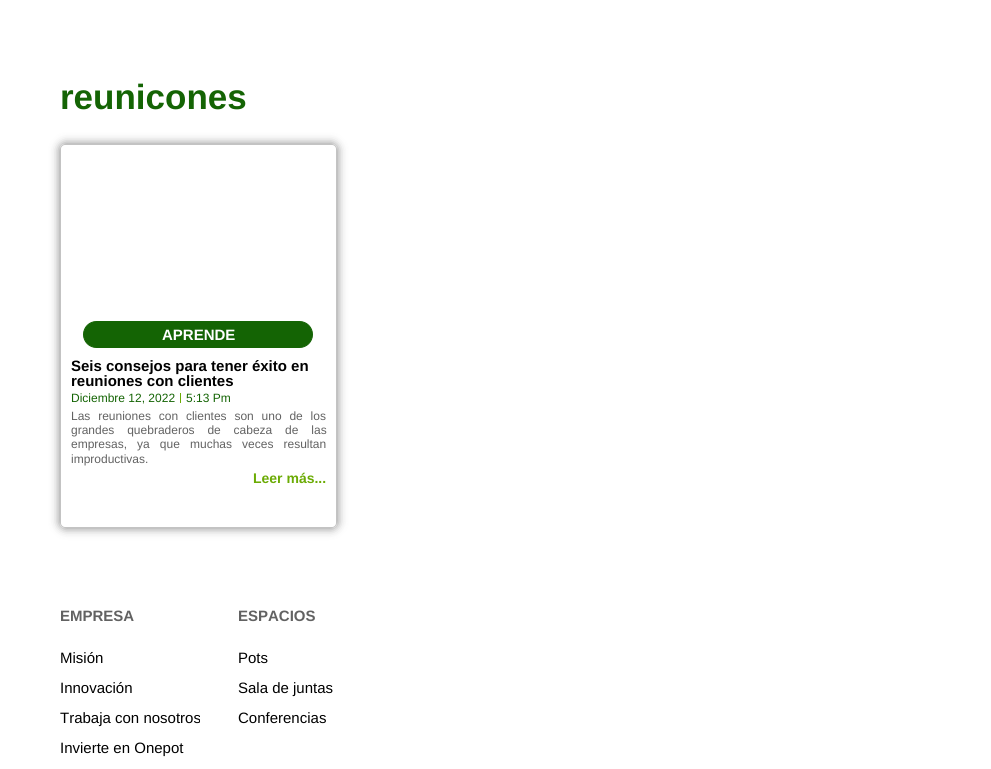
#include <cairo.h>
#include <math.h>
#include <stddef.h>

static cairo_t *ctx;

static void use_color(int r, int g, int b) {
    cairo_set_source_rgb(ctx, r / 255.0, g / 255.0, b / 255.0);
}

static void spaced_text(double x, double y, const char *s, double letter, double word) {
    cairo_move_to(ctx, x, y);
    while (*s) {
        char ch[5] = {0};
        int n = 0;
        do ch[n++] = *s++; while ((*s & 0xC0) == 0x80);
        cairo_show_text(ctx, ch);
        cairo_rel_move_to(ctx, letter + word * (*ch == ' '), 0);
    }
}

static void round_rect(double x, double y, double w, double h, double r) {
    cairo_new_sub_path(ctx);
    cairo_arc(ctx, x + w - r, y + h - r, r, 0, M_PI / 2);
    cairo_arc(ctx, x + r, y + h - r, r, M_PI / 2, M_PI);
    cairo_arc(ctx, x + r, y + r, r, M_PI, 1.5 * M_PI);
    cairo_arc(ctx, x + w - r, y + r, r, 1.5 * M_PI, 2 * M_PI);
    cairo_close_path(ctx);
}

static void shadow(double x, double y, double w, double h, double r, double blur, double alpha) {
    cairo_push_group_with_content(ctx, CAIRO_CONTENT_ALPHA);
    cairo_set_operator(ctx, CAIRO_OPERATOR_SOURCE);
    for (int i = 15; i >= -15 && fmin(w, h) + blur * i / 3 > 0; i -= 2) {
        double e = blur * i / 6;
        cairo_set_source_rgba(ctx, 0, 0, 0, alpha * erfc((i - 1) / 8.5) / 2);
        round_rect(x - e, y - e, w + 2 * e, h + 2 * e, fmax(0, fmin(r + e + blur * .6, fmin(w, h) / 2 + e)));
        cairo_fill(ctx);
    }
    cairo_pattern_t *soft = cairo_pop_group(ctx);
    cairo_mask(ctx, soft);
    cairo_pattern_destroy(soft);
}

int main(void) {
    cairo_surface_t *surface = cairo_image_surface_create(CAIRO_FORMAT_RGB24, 991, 769);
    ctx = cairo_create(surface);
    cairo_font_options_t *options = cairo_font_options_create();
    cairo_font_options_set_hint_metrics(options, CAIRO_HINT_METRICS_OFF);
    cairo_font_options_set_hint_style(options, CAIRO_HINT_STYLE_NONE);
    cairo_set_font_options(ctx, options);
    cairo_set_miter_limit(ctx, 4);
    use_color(255, 255, 255);
    cairo_paint(ctx);
    cairo_select_font_face(ctx, "Liberation Sans", CAIRO_FONT_SLANT_NORMAL, CAIRO_FONT_WEIGHT_BOLD);
    cairo_set_font_size(ctx, 35);
    use_color(20, 100, 4);
    cairo_move_to(ctx, 60, 109);
    cairo_show_text(ctx, "reunicones");
    cairo_save(ctx);
    cairo_set_fill_rule(ctx, CAIRO_FILL_RULE_EVEN_ODD);
    cairo_new_path(ctx);
    cairo_move_to(ctx, 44, 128);
    cairo_line_to(ctx, 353, 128);
    cairo_line_to(ctx, 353, 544);
    cairo_line_to(ctx, 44, 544);
    cairo_close_path(ctx);
    cairo_move_to(ctx, 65, 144);
    cairo_line_to(ctx, 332, 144);
    cairo_curve_to(ctx, 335, 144, 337, 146, 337, 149);
    cairo_line_to(ctx, 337, 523);
    cairo_curve_to(ctx, 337, 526, 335, 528, 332, 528);
    cairo_line_to(ctx, 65, 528);
    cairo_curve_to(ctx, 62, 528, 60, 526, 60, 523);
    cairo_line_to(ctx, 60, 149);
    cairo_curve_to(ctx, 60, 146, 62, 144, 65, 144);
    cairo_close_path(ctx);
    cairo_clip(ctx);
    use_color(0, 0, 0);
    shadow(60, 144, 277, 384, 5, 5, 0.5);
    cairo_restore(ctx);
    round_rect(60.5, 144.5, 276, 383, 4.5);
    cairo_set_source_rgba(ctx, 0.384, 0.384, 0.384, 0.38);
    cairo_set_line_width(ctx, 1);
    cairo_stroke(ctx);
    use_color(20, 100, 4);
    round_rect(83.5, 321.5, 229, 26, 13);
    cairo_fill_preserve(ctx);
    cairo_stroke(ctx);
    cairo_set_font_size(ctx, 15);
    use_color(255, 255, 255);
    cairo_move_to(ctx, 162, 340);
    cairo_show_text(ctx, "APRENDE");
    use_color(0, 0, 0);
    cairo_move_to(ctx, 71, 371);
    cairo_show_text(ctx, "Seis consejos para tener éxito en");
    cairo_move_to(ctx, 71, 386);
    cairo_show_text(ctx, "reuniones con clientes");
    cairo_select_font_face(ctx, "Liberation Sans", CAIRO_FONT_SLANT_NORMAL, CAIRO_FONT_WEIGHT_NORMAL);
    cairo_set_font_size(ctx, 12);
    use_color(20, 100, 4);
    cairo_move_to(ctx, 71, 402);
    cairo_show_text(ctx, "Diciembre 12, 2022");
    use_color(107, 171, 4);
    cairo_rectangle(ctx, 180, 393, 1, 10);
    cairo_fill(ctx);
    use_color(20, 100, 4);
    cairo_move_to(ctx, 186, 402);
    cairo_show_text(ctx, "5:13 Pm");
    use_color(98, 98, 98);
    spaced_text(71, 420, "Las reuniones con clientes son uno de los", 0, 4.5);
    spaced_text(71, 434, "grandes quebraderos de cabeza de las", 0, 9.5);
    spaced_text(71, 448, "empresas, ya que muchas veces resultan", 0, 6.75);
    cairo_move_to(ctx, 71, 463);
    cairo_show_text(ctx, "improductivas.");
    cairo_select_font_face(ctx, "Liberation Sans", CAIRO_FONT_SLANT_NORMAL, CAIRO_FONT_WEIGHT_BOLD);
    cairo_set_font_size(ctx, 14);
    use_color(107, 171, 4);
    cairo_move_to(ctx, 253, 483);
    cairo_show_text(ctx, "Leer más...");
    cairo_set_font_size(ctx, 15);
    use_color(98, 98, 98);
    cairo_move_to(ctx, 60, 621);
    cairo_show_text(ctx, "EMPRESA");
    cairo_select_font_face(ctx, "Liberation Sans", CAIRO_FONT_SLANT_NORMAL, CAIRO_FONT_WEIGHT_NORMAL);
    use_color(0, 0, 0);
    cairo_move_to(ctx, 60, 663);
    cairo_show_text(ctx, "Misión");
    cairo_move_to(ctx, 60, 693);
    cairo_show_text(ctx, "Innovación");
    cairo_move_to(ctx, 60, 723);
    cairo_show_text(ctx, "Trabaja con nosotros");
    cairo_move_to(ctx, 60, 753);
    cairo_show_text(ctx, "Invierte en Onepot");
    cairo_select_font_face(ctx, "Liberation Sans", CAIRO_FONT_SLANT_NORMAL, CAIRO_FONT_WEIGHT_BOLD);
    use_color(98, 98, 98);
    cairo_move_to(ctx, 238, 621);
    cairo_show_text(ctx, "ESPACIOS");
    cairo_select_font_face(ctx, "Liberation Sans", CAIRO_FONT_SLANT_NORMAL, CAIRO_FONT_WEIGHT_NORMAL);
    use_color(0, 0, 0);
    cairo_move_to(ctx, 238, 663);
    cairo_show_text(ctx, "Pots");
    cairo_move_to(ctx, 238, 693);
    cairo_show_text(ctx, "Sala de juntas");
    cairo_move_to(ctx, 238, 723);
    cairo_show_text(ctx, "Conferencias");
    cairo_surface_write_to_png(surface, "result.png");
    cairo_font_options_destroy(options);
    cairo_destroy(ctx);
    cairo_surface_destroy(surface);
    return 0;
}
